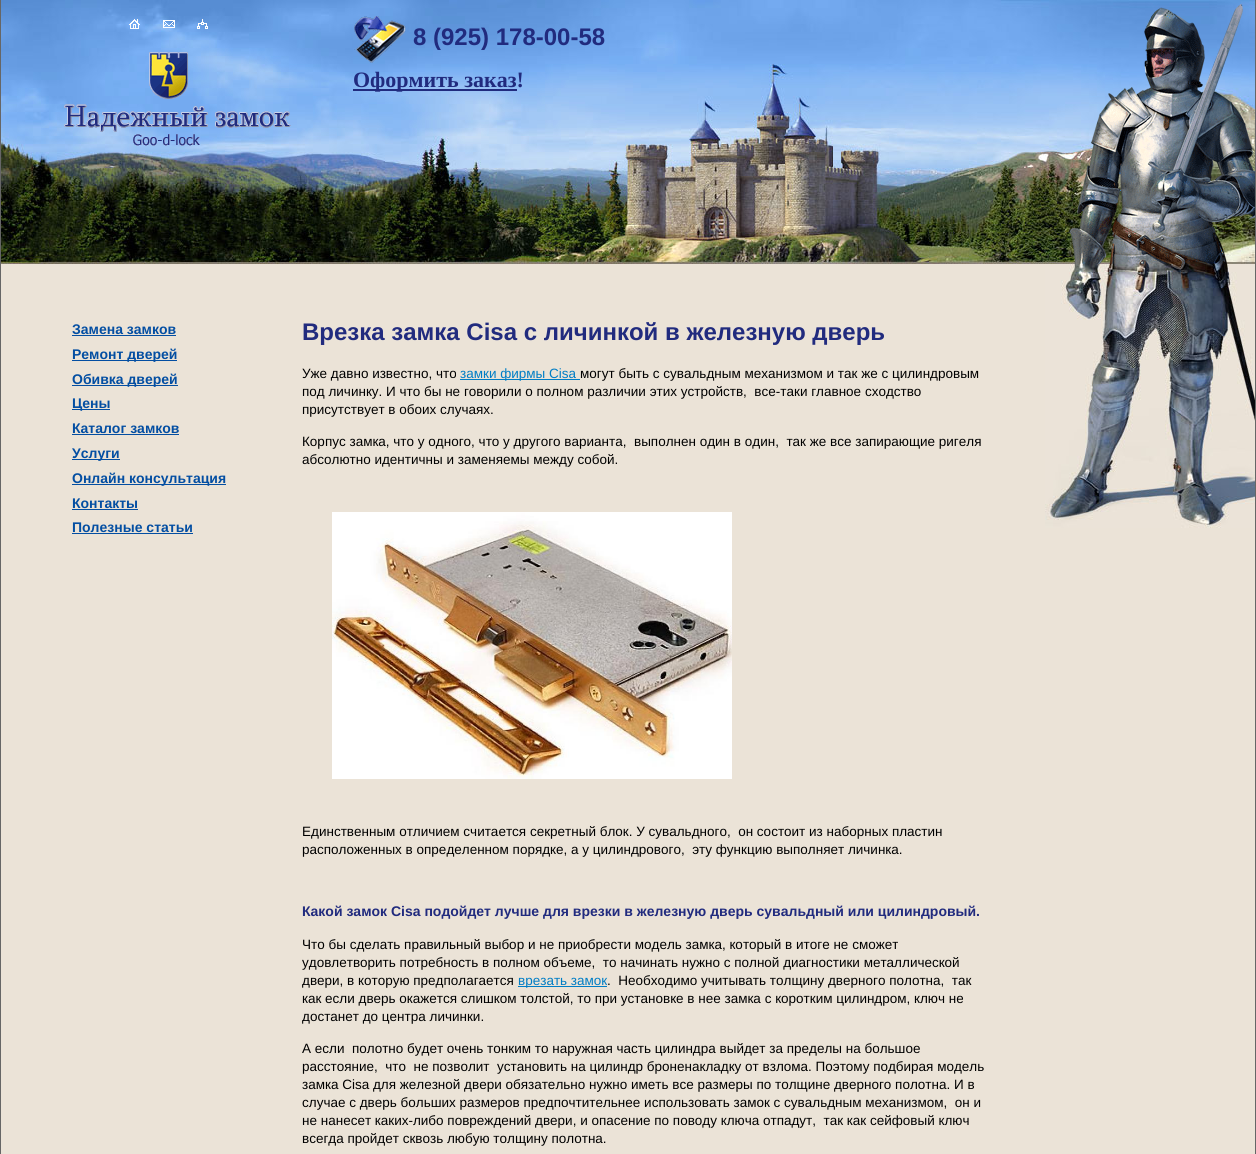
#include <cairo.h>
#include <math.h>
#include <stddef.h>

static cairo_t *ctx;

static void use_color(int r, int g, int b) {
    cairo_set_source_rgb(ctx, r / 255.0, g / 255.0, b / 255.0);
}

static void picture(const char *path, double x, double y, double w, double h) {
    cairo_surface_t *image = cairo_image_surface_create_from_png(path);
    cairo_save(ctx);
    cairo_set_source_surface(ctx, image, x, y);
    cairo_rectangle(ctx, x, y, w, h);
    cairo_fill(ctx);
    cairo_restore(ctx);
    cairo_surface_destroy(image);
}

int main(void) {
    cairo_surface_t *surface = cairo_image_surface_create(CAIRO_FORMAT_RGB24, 1256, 1154);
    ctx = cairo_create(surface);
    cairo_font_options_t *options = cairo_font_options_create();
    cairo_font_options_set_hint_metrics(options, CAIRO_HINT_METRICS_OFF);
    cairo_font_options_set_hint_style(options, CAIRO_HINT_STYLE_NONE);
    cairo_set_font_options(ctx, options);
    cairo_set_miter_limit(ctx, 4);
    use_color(235, 227, 215);
    cairo_paint(ctx);
    use_color(102, 102, 102);
    cairo_rectangle(ctx, 1255, 0, 1, 1154);
    cairo_fill(ctx);
    cairo_rectangle(ctx, 0, 0, 1, 1154);
    cairo_fill(ctx);
    picture("img1.png", 1, 0, 1254, 264);
    picture("img2.png", 1069, 4, 186, 260);
    picture("img3.png", 129, 19, 11, 10);
    picture("img4.png", 163, 20, 12, 8);
    picture("img5.png", 197, 19, 11, 10);
    picture("img6.png", 1071, 6, 184, 256);
    picture("img7.png", 64, 52, 227, 94);
    picture("img8.png", 354, 16, 52, 47);
    cairo_select_font_face(ctx, "Liberation Sans", CAIRO_FONT_SLANT_NORMAL, CAIRO_FONT_WEIGHT_BOLD);
    cairo_set_font_size(ctx, 24);
    use_color(33, 43, 126);
    cairo_move_to(ctx, 413, 45);
    cairo_show_text(ctx, "8 (925) 178-00-58");
    cairo_rectangle(ctx, 353, 89, 164, 2);
    cairo_fill(ctx);
    cairo_select_font_face(ctx, "Liberation Serif", CAIRO_FONT_SLANT_NORMAL, CAIRO_FONT_WEIGHT_BOLD);
    cairo_set_font_size(ctx, 22);
    cairo_move_to(ctx, 353, 87);
    cairo_show_text(ctx, "Оформить заказ!");
    picture("img9.png", 1045, 264, 210, 264);
    cairo_select_font_face(ctx, "Liberation Sans", CAIRO_FONT_SLANT_NORMAL, CAIRO_FONT_WEIGHT_BOLD);
    cairo_set_font_size(ctx, 14);
    use_color(3, 78, 162);
    cairo_move_to(ctx, 72, 334);
    cairo_show_text(ctx, "Замена замков");
    cairo_rectangle(ctx, 72, 335, 104, 1);
    cairo_fill(ctx);
    cairo_rectangle(ctx, 72, 360, 105, 1);
    cairo_fill(ctx);
    cairo_move_to(ctx, 72, 359);
    cairo_show_text(ctx, "Ремонт дверей");
    cairo_rectangle(ctx, 72, 385, 106, 1);
    cairo_fill(ctx);
    cairo_move_to(ctx, 72, 384);
    cairo_show_text(ctx, "Обивка дверей");
    cairo_rectangle(ctx, 72, 409, 38, 1);
    cairo_fill(ctx);
    cairo_move_to(ctx, 72, 408);
    cairo_show_text(ctx, "Цены");
    cairo_move_to(ctx, 72, 433);
    cairo_show_text(ctx, "Каталог замков");
    cairo_rectangle(ctx, 72, 434, 107, 1);
    cairo_fill(ctx);
    cairo_rectangle(ctx, 72, 459, 48, 1);
    cairo_fill(ctx);
    cairo_move_to(ctx, 72, 458);
    cairo_show_text(ctx, "Услуги");
    cairo_rectangle(ctx, 72, 484, 154, 1);
    cairo_fill(ctx);
    cairo_move_to(ctx, 72, 483);
    cairo_show_text(ctx, "Онлайн консультация");
    cairo_move_to(ctx, 72, 508);
    cairo_show_text(ctx, "Контакты");
    cairo_rectangle(ctx, 72, 509, 66, 1);
    cairo_fill(ctx);
    cairo_move_to(ctx, 72, 532);
    cairo_show_text(ctx, "Полезные статьи");
    cairo_rectangle(ctx, 72, 533, 121, 1);
    cairo_fill(ctx);
    cairo_set_font_size(ctx, 24);
    use_color(33, 43, 126);
    cairo_move_to(ctx, 302, 340);
    cairo_show_text(ctx, "Врезка замка Cisa с личинкой в железную дверь");
    cairo_select_font_face(ctx, "Liberation Sans", CAIRO_FONT_SLANT_NORMAL, CAIRO_FONT_WEIGHT_NORMAL);
    cairo_set_font_size(ctx, 13.5);
    use_color(0, 0, 0);
    cairo_move_to(ctx, 302, 378);
    cairo_show_text(ctx, "Уже давно известно, что");
    use_color(0, 125, 197);
    cairo_rectangle(ctx, 460, 379, 120, 1);
    cairo_fill(ctx);
    cairo_move_to(ctx, 460, 378);
    cairo_show_text(ctx, "замки фирмы Cisa");
    use_color(0, 0, 0);
    cairo_move_to(ctx, 580, 378);
    cairo_show_text(ctx, "могут быть с сувальдным механизмом и так же с цилиндровым");
    cairo_move_to(ctx, 302, 396);
    cairo_show_text(ctx, "под личинку. И что бы не говорили о полном различии этих устройств,  все-таки главное сходство");
    cairo_move_to(ctx, 302, 414);
    cairo_show_text(ctx, "присутствует в обоих случаях.");
    cairo_move_to(ctx, 302, 446);
    cairo_show_text(ctx, "Корпус замка, что у одного, что у другого варианта,  выполнен один в один,  так же все запирающие ригеля");
    cairo_move_to(ctx, 302, 464);
    cairo_show_text(ctx, "абсолютно идентичны и заменяемы между собой.");
    picture("img10.png", 332, 512, 400, 267);
    cairo_move_to(ctx, 302, 836);
    cairo_show_text(ctx, "Единственным отличием считается секретный блок. У сувальдного,  он состоит из наборных пластин");
    cairo_move_to(ctx, 302, 854);
    cairo_show_text(ctx, "расположенных в определенном порядке, а у цилиндрового,  эту функцию выполняет личинка.");
    cairo_select_font_face(ctx, "Liberation Sans", CAIRO_FONT_SLANT_NORMAL, CAIRO_FONT_WEIGHT_BOLD);
    cairo_set_font_size(ctx, 14);
    use_color(33, 43, 126);
    cairo_move_to(ctx, 302, 916);
    cairo_show_text(ctx, "Какой замок Cisa подойдет лучше для врезки в железную дверь сувальдный или цилиндровый.");
    cairo_select_font_face(ctx, "Liberation Sans", CAIRO_FONT_SLANT_NORMAL, CAIRO_FONT_WEIGHT_NORMAL);
    cairo_set_font_size(ctx, 13.5);
    use_color(0, 0, 0);
    cairo_move_to(ctx, 302, 949);
    cairo_show_text(ctx, "Что бы сделать правильный выбор и не приобрести модель замка, который в итоге не сможет");
    cairo_move_to(ctx, 302, 967);
    cairo_show_text(ctx, "удовлетворить потребность в полном объеме,  то начинать нужно с полной диагностики металлической");
    cairo_move_to(ctx, 302, 985);
    cairo_show_text(ctx, "двери, в которую предполагается");
    use_color(0, 125, 197);
    cairo_rectangle(ctx, 518, 986, 89, 1);
    cairo_fill(ctx);
    cairo_move_to(ctx, 518, 985);
    cairo_show_text(ctx, "врезать замок");
    use_color(0, 0, 0);
    cairo_move_to(ctx, 607, 985);
    cairo_show_text(ctx, ".  Необходимо учитывать толщину дверного полотна,  так");
    cairo_move_to(ctx, 302, 1003);
    cairo_show_text(ctx, "как если дверь окажется слишком толстой, то при установке в нее замка с коротким цилиндром, ключ не");
    cairo_move_to(ctx, 302, 1021);
    cairo_show_text(ctx, "достанет до центра личинки.");
    cairo_move_to(ctx, 302, 1053);
    cairo_show_text(ctx, "А если  полотно будет очень тонким то наружная часть цилиндра выйдет за пределы на большое");
    cairo_move_to(ctx, 302, 1071);
    cairo_show_text(ctx, "расстояние,  что  не позволит  установить на цилиндр броненакладку от взлома. Поэтому подбирая модель");
    cairo_move_to(ctx, 302, 1089);
    cairo_show_text(ctx, "замка Cisa для железной двери обязательно нужно иметь все размеры по толщине дверного полотна. И в");
    cairo_move_to(ctx, 302, 1107);
    cairo_show_text(ctx, "случае с дверь больших размеров предпочтительнее использовать замок с сувальдным механизмом,  он и");
    cairo_move_to(ctx, 302, 1125);
    cairo_show_text(ctx, "не нанесет каких-либо повреждений двери, и опасение по поводу ключа отпадут,  так как сейфовый ключ");
    cairo_move_to(ctx, 302, 1143);
    cairo_show_text(ctx, "всегда пройдет сквозь любую толщину полотна.");
    cairo_surface_write_to_png(surface, "result.png");
    cairo_font_options_destroy(options);
    cairo_destroy(ctx);
    cairo_surface_destroy(surface);
    return 0;
}
